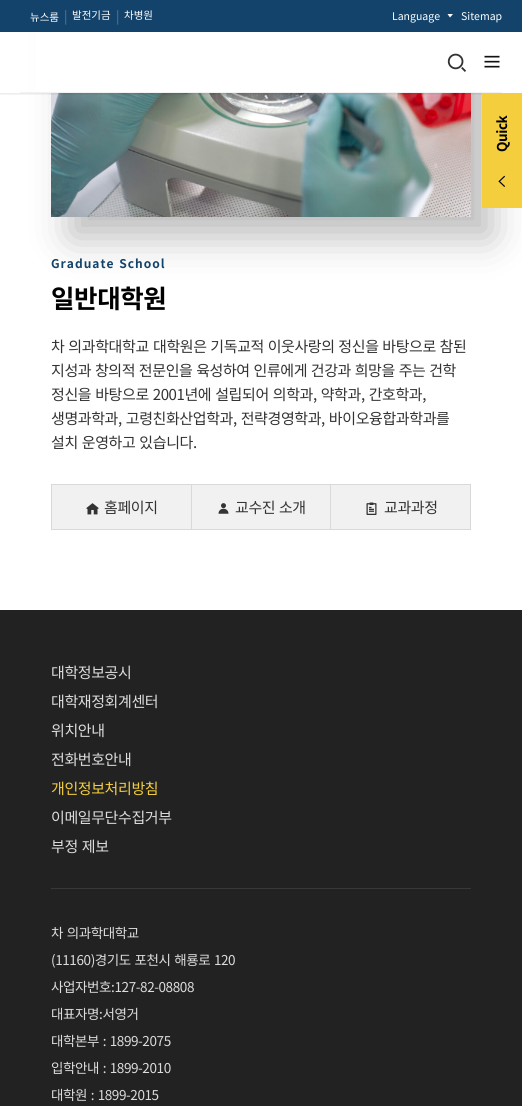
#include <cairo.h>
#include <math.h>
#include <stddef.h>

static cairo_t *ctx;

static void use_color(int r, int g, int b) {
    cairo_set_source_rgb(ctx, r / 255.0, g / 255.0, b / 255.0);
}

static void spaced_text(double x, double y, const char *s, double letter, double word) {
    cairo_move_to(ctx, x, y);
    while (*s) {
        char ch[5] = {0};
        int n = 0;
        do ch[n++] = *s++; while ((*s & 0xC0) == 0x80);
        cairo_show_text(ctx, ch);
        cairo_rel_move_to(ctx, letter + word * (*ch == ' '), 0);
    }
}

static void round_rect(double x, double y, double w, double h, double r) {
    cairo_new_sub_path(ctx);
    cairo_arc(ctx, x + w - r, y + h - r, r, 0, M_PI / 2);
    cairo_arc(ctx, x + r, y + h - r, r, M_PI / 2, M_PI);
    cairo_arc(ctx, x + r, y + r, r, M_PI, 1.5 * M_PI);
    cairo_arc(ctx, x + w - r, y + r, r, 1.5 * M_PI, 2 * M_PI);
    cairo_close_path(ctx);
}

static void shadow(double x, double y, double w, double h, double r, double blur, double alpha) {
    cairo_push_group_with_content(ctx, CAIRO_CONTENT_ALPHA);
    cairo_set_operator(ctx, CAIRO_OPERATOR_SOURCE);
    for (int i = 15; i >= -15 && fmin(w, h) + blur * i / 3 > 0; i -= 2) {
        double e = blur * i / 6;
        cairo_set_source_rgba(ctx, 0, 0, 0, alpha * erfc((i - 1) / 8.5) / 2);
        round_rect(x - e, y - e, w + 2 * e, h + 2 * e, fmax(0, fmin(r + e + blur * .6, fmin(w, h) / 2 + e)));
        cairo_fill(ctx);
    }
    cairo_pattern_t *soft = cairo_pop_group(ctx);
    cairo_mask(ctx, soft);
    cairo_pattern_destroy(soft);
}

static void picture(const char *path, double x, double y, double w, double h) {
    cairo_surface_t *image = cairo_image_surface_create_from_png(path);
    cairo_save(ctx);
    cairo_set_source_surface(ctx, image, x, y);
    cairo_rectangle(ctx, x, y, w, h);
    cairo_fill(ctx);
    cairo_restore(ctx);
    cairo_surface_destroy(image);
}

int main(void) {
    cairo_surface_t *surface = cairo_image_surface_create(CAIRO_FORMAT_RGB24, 522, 1106);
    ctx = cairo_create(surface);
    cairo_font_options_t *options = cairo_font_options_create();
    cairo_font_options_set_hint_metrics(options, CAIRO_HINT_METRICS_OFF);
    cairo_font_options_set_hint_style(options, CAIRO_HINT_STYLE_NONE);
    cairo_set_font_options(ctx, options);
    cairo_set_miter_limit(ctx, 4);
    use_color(255, 255, 255);
    cairo_paint(ctx);
    use_color(0, 0, 0);
    shadow(71, -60, 420, 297, 0, 20, 0.27);
    use_color(255, 255, 255);
    cairo_rectangle(ctx, 35, 32, 487, 61);
    cairo_fill(ctx);
    picture("img3.png", 51, 93, 420, 124);
    cairo_save(ctx);
    cairo_rectangle(ctx, 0, 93, 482, 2);
    cairo_clip(ctx);
    use_color(0, 0, 0);
    shadow(0, 33, 522, 61, 0, 1.5, 0.11);
    cairo_restore(ctx);
    use_color(19, 67, 107);
    cairo_rectangle(ctx, 0, 0, 522, 32);
    cairo_fill(ctx);
    cairo_select_font_face(ctx, "Noto Sans KR", CAIRO_FONT_SLANT_NORMAL, CAIRO_FONT_WEIGHT_NORMAL);
    cairo_set_font_size(ctx, 10.5);
    use_color(255, 255, 255);
    cairo_move_to(ctx, 30, 21);
    cairo_show_text(ctx, "뉴스룸");
    cairo_set_font_size(ctx, 13);
    use_color(90, 123, 151);
    spaced_text(64, 21, "|", -0.4, 0);
    cairo_set_font_size(ctx, 10.5);
    use_color(255, 255, 255);
    cairo_move_to(ctx, 72, 19);
    cairo_show_text(ctx, "발전기금");
    cairo_set_font_size(ctx, 13);
    use_color(90, 123, 151);
    spaced_text(116, 21, "|", -0.4, 0);
    cairo_set_font_size(ctx, 10.5);
    use_color(255, 255, 255);
    cairo_move_to(ctx, 124, 19);
    cairo_show_text(ctx, "차병원");
    cairo_move_to(ctx, 392, 20);
    cairo_show_text(ctx, "Language");
    cairo_new_path(ctx);
    cairo_move_to(ctx, 453, 14);
    cairo_line_to(ctx, 450, 17.5);
    cairo_line_to(ctx, 447.5, 14);
    cairo_close_path(ctx);
    cairo_fill(ctx);
    cairo_move_to(ctx, 461, 20);
    cairo_show_text(ctx, "Sitemap");
    use_color(242, 242, 242);
    cairo_rectangle(ctx, 20, 92, 482, 1);
    cairo_fill(ctx);
    picture("img1.png", 447, 53, 20, 19);
    picture("img2.png", 484, 55, 16, 13);
    cairo_select_font_face(ctx, "Noto Sans KR", CAIRO_FONT_SLANT_NORMAL, CAIRO_FONT_WEIGHT_BOLD);
    cairo_set_font_size(ctx, 12);
    use_color(19, 67, 107);
    spaced_text(51, 268, "Graduate School", 1, 1);
    cairo_set_font_size(ctx, 25.5);
    use_color(0, 0, 0);
    spaced_text(51, 308, "일반대학원", -0.4, 0);
    cairo_select_font_face(ctx, "Noto Sans KR", CAIRO_FONT_SLANT_NORMAL, CAIRO_FONT_WEIGHT_NORMAL);
    cairo_set_font_size(ctx, 15);
    use_color(51, 51, 51);
    spaced_text(51, 352, "차 의과학대학교", -0.4, 1);
    spaced_text(153, 352, "대학원은 기독교적 이웃사랑의 정신을 바탕으로 참된", -0.4, 0.75);
    spaced_text(51, 376, "지성과 창의적 전문인을 육성하여 인류에게 건강과 희망을 주는 건학", -0.4, 0.75);
    spaced_text(51, 400, "정신을 바탕으로 2001년에 설립되어 의학과, 약학과, 간호학과,", -0.4, 1);
    spaced_text(51, 424, "생명과학과, 고령친화산업학과, 전략경영학과, 바이오융합과학과를", -0.4, 1);
    spaced_text(51, 448, "설치 운영하고 있습니다.", -0.4, 1);
    use_color(241, 241, 241);
    cairo_rectangle(ctx, 51.5, 484.5, 419, 45);
    cairo_fill_preserve(ctx);
    use_color(217, 217, 217);
    cairo_set_line_width(ctx, 1);
    cairo_stroke(ctx);
    picture("img4.png", 86, 503, 13, 12);
    use_color(51, 51, 51);
    spaced_text(104, 513, "홈페이지", -0.4, 0);
    use_color(217, 217, 217);
    cairo_rectangle(ctx, 191, 485, 1, 44);
    cairo_fill(ctx);
    picture("img5.png", 218, 503, 11, 11);
    use_color(51, 51, 51);
    spaced_text(235, 513, "교수진 소개", -0.4, 0.75);
    use_color(217, 217, 217);
    cairo_rectangle(ctx, 330, 485, 1, 44);
    cairo_fill(ctx);
    picture("img6.png", 366, 502, 11, 13);
    use_color(51, 51, 51);
    spaced_text(384, 513, "교과과정", -0.4, 0);
    use_color(34, 34, 34);
    cairo_rectangle(ctx, 0, 610, 522, 496);
    cairo_fill(ctx);
    use_color(56, 56, 56);
    cairo_rectangle(ctx, 51, 888, 420, 1);
    cairo_fill(ctx);
    use_color(220, 220, 220);
    spaced_text(51, 678, "대학정보공시", -0.4, 0);
    spaced_text(51, 707, "대학재정회계센터", -0.4, 0);
    spaced_text(51, 736, "위치안내", -0.4, 0);
    spaced_text(51, 765, "전화번호안내", -0.4, 0);
    use_color(244, 206, 60);
    spaced_text(51, 794, "개인정보처리방침", -0.4, 0);
    use_color(220, 220, 220);
    spaced_text(51, 823, "이메일무단수집거부", -0.4, 0);
    spaced_text(51, 852, "부정 제보", -0.4, 1);
    cairo_set_font_size(ctx, 13.5);
    spaced_text(51, 938, "차 의과학대학교", -0.4, 1);
    spaced_text(51, 965, "(11160)경기도 포천시 해룡로 120", -0.4, 1);
    spaced_text(51, 992, "사업자번호:127-82-08808", -0.4, 0);
    spaced_text(51, 1019, "대표자명:서영거", -0.4, 0);
    spaced_text(51, 1046, "대학본부 : 1899-2075", -0.4, 1);
    spaced_text(51, 1073, "입학안내 : 1899-2010", -0.4, 1);
    spaced_text(51, 1100, "대학원 : 1899-2015", -0.4, 1);
    use_color(244, 206, 60);
    cairo_rectangle(ctx, 482, 93, 40, 115);
    cairo_fill(ctx);
    cairo_select_font_face(ctx, "Noto Sans KR", CAIRO_FONT_SLANT_NORMAL, CAIRO_FONT_WEIGHT_BOLD);
    use_color(0, 0, 0);
    cairo_save(ctx);
    cairo_translate(ctx, 507, 152);
    cairo_rotate(ctx, -90 * M_PI / 180);
    spaced_text(0, 0, "Quick", -0.4, 0);
    cairo_restore(ctx);
    picture("img7.png", 498, 175, 7, 12);
    cairo_surface_write_to_png(surface, "result.png");
    cairo_font_options_destroy(options);
    cairo_destroy(ctx);
    cairo_surface_destroy(surface);
    return 0;
}
